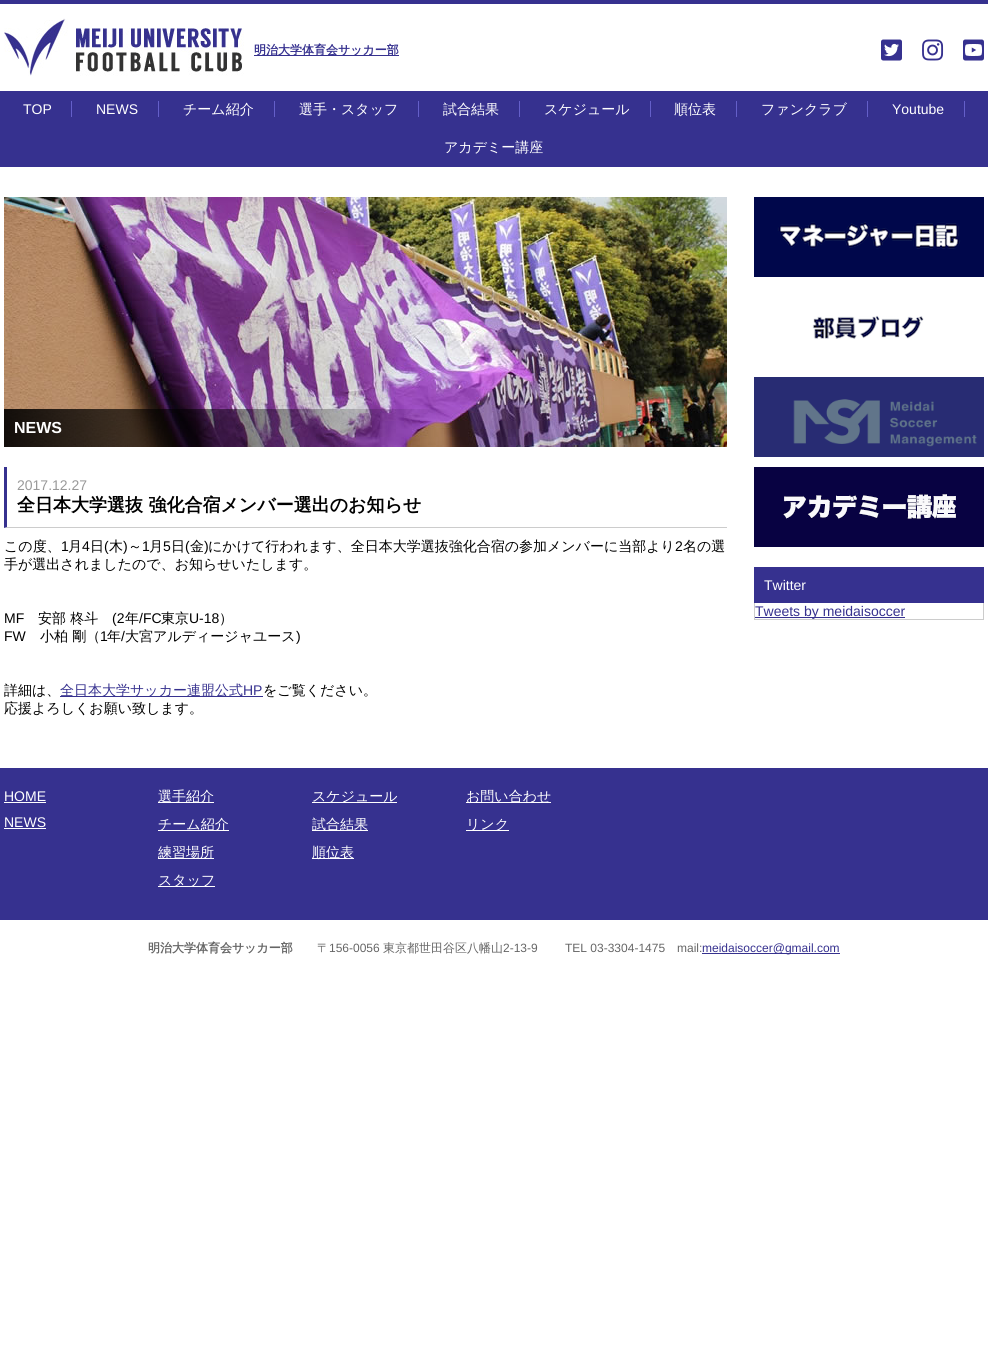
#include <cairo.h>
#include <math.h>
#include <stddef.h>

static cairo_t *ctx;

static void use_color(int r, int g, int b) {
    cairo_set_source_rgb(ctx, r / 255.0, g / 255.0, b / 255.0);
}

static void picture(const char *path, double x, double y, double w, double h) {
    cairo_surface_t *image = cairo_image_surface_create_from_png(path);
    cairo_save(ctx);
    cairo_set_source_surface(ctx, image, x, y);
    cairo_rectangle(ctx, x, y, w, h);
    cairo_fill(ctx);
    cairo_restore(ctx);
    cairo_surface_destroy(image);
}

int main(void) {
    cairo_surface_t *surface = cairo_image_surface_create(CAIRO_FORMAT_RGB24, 988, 1361);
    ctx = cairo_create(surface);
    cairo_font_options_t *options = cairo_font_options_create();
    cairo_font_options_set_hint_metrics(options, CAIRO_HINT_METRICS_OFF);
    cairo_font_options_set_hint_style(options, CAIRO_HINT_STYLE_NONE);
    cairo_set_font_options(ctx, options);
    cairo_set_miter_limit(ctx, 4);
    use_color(255, 255, 255);
    cairo_paint(ctx);
    use_color(54, 49, 143);
    cairo_rectangle(ctx, 0, 0, 988, 4);
    cairo_fill(ctx);
    picture("img1.png", 4, 18, 240, 58);
    cairo_rectangle(ctx, 254, 55, 145, 1);
    cairo_fill(ctx);
    cairo_select_font_face(ctx, "WenQuanYi Zen Hei", CAIRO_FONT_SLANT_NORMAL, CAIRO_FONT_WEIGHT_BOLD);
    cairo_set_font_size(ctx, 12);
    cairo_move_to(ctx, 254, 54);
    cairo_show_text(ctx, "明治大学体育会サッカー部");
    picture("img2.png", 881, 39, 21, 22);
    picture("img3.png", 922, 39, 22, 22);
    picture("img4.png", 963, 39, 21, 22);
    cairo_rectangle(ctx, 0, 91, 988, 76);
    cairo_fill(ctx);
    cairo_select_font_face(ctx, "Liberation Sans", CAIRO_FONT_SLANT_NORMAL, CAIRO_FONT_WEIGHT_NORMAL);
    cairo_set_font_size(ctx, 14);
    use_color(255, 255, 255);
    cairo_move_to(ctx, 23, 114);
    cairo_show_text(ctx, "TOP");
    use_color(100, 95, 201);
    cairo_rectangle(ctx, 71, 101, 1, 16);
    cairo_fill(ctx);
    use_color(255, 255, 255);
    cairo_move_to(ctx, 96, 114);
    cairo_show_text(ctx, "NEWS");
    use_color(100, 95, 201);
    cairo_rectangle(ctx, 158, 101, 1, 16);
    cairo_fill(ctx);
    cairo_select_font_face(ctx, "WenQuanYi Zen Hei Medium", CAIRO_FONT_SLANT_NORMAL, CAIRO_FONT_WEIGHT_NORMAL);
    use_color(255, 255, 255);
    cairo_move_to(ctx, 183, 114);
    cairo_show_text(ctx, "チーム紹介");
    use_color(100, 95, 201);
    cairo_rectangle(ctx, 274, 101, 1, 16);
    cairo_fill(ctx);
    use_color(255, 255, 255);
    cairo_move_to(ctx, 299, 114);
    cairo_show_text(ctx, "選手・スタッフ");
    use_color(100, 95, 201);
    cairo_rectangle(ctx, 418, 101, 1, 16);
    cairo_fill(ctx);
    use_color(255, 255, 255);
    cairo_move_to(ctx, 443, 114);
    cairo_show_text(ctx, "試合結果");
    use_color(100, 95, 201);
    cairo_rectangle(ctx, 519, 101, 1, 16);
    cairo_fill(ctx);
    use_color(255, 255, 255);
    cairo_move_to(ctx, 544, 114);
    cairo_show_text(ctx, "スケジュール");
    use_color(100, 95, 201);
    cairo_rectangle(ctx, 650, 101, 1, 16);
    cairo_fill(ctx);
    use_color(255, 255, 255);
    cairo_move_to(ctx, 674, 114);
    cairo_show_text(ctx, "順位表");
    use_color(100, 95, 201);
    cairo_rectangle(ctx, 736, 101, 1, 16);
    cairo_fill(ctx);
    use_color(255, 255, 255);
    cairo_move_to(ctx, 761, 114);
    cairo_show_text(ctx, "ファンクラブ");
    use_color(100, 95, 201);
    cairo_rectangle(ctx, 867, 101, 1, 16);
    cairo_fill(ctx);
    cairo_select_font_face(ctx, "Liberation Sans", CAIRO_FONT_SLANT_NORMAL, CAIRO_FONT_WEIGHT_NORMAL);
    use_color(255, 255, 255);
    cairo_move_to(ctx, 892, 114);
    cairo_show_text(ctx, "Youtube");
    use_color(100, 95, 201);
    cairo_rectangle(ctx, 964, 101, 1, 16);
    cairo_fill(ctx);
    cairo_select_font_face(ctx, "WenQuanYi Zen Hei Medium", CAIRO_FONT_SLANT_NORMAL, CAIRO_FONT_WEIGHT_NORMAL);
    use_color(255, 255, 255);
    cairo_move_to(ctx, 444, 152);
    cairo_show_text(ctx, "アカデミー講座");
    picture("img5.png", 4, 197, 723, 250);
    cairo_select_font_face(ctx, "Liberation Sans", CAIRO_FONT_SLANT_NORMAL, CAIRO_FONT_WEIGHT_BOLD);
    cairo_set_font_size(ctx, 16);
    cairo_move_to(ctx, 14, 433);
    cairo_show_text(ctx, "NEWS");
    use_color(204, 204, 204);
    cairo_new_path(ctx);
    cairo_move_to(ctx, 727, 528);
    cairo_line_to(ctx, 4, 528);
    cairo_line_to(ctx, 7, 527);
    cairo_line_to(ctx, 727, 527);
    cairo_close_path(ctx);
    cairo_fill(ctx);
    use_color(54, 49, 143);
    cairo_new_path(ctx);
    cairo_move_to(ctx, 4, 528);
    cairo_line_to(ctx, 4, 467);
    cairo_line_to(ctx, 7, 467);
    cairo_line_to(ctx, 7, 527);
    cairo_close_path(ctx);
    cairo_fill(ctx);
    cairo_select_font_face(ctx, "Liberation Sans", CAIRO_FONT_SLANT_NORMAL, CAIRO_FONT_WEIGHT_NORMAL);
    cairo_set_font_size(ctx, 14);
    use_color(153, 153, 153);
    cairo_move_to(ctx, 17, 490);
    cairo_show_text(ctx, "2017.12.27");
    cairo_select_font_face(ctx, "WenQuanYi Zen Hei", CAIRO_FONT_SLANT_NORMAL, CAIRO_FONT_WEIGHT_BOLD);
    cairo_set_font_size(ctx, 18);
    use_color(0, 0, 0);
    cairo_move_to(ctx, 17, 511);
    cairo_show_text(ctx, "全日本大学選抜 強化合宿メンバー選出のお知らせ");
    cairo_select_font_face(ctx, "WenQuanYi Zen Hei Medium", CAIRO_FONT_SLANT_NORMAL, CAIRO_FONT_WEIGHT_NORMAL);
    cairo_set_font_size(ctx, 14);
    cairo_move_to(ctx, 4, 551);
    cairo_show_text(ctx, "この度、");
    cairo_select_font_face(ctx, "Liberation Sans", CAIRO_FONT_SLANT_NORMAL, CAIRO_FONT_WEIGHT_NORMAL);
    cairo_move_to(ctx, 61, 551);
    cairo_show_text(ctx, "1");
    cairo_select_font_face(ctx, "WenQuanYi Zen Hei Medium", CAIRO_FONT_SLANT_NORMAL, CAIRO_FONT_WEIGHT_NORMAL);
    cairo_move_to(ctx, 68, 551);
    cairo_show_text(ctx, "月");
    cairo_select_font_face(ctx, "Liberation Sans", CAIRO_FONT_SLANT_NORMAL, CAIRO_FONT_WEIGHT_NORMAL);
    cairo_move_to(ctx, 82, 551);
    cairo_show_text(ctx, "4");
    cairo_select_font_face(ctx, "WenQuanYi Zen Hei Medium", CAIRO_FONT_SLANT_NORMAL, CAIRO_FONT_WEIGHT_NORMAL);
    cairo_move_to(ctx, 90, 551);
    cairo_show_text(ctx, "日");
    cairo_select_font_face(ctx, "Liberation Sans", CAIRO_FONT_SLANT_NORMAL, CAIRO_FONT_WEIGHT_NORMAL);
    cairo_move_to(ctx, 104, 551);
    cairo_show_text(ctx, "(");
    cairo_select_font_face(ctx, "WenQuanYi Zen Hei Medium", CAIRO_FONT_SLANT_NORMAL, CAIRO_FONT_WEIGHT_NORMAL);
    cairo_move_to(ctx, 109, 551);
    cairo_show_text(ctx, "木");
    cairo_select_font_face(ctx, "Liberation Sans", CAIRO_FONT_SLANT_NORMAL, CAIRO_FONT_WEIGHT_NORMAL);
    cairo_move_to(ctx, 123, 551);
    cairo_show_text(ctx, ")");
    cairo_select_font_face(ctx, "WenQuanYi Zen Hei Medium", CAIRO_FONT_SLANT_NORMAL, CAIRO_FONT_WEIGHT_NORMAL);
    cairo_move_to(ctx, 128, 551);
    cairo_show_text(ctx, "～");
    cairo_select_font_face(ctx, "Liberation Sans", CAIRO_FONT_SLANT_NORMAL, CAIRO_FONT_WEIGHT_NORMAL);
    cairo_move_to(ctx, 142, 551);
    cairo_show_text(ctx, "1");
    cairo_select_font_face(ctx, "WenQuanYi Zen Hei Medium", CAIRO_FONT_SLANT_NORMAL, CAIRO_FONT_WEIGHT_NORMAL);
    cairo_move_to(ctx, 149, 551);
    cairo_show_text(ctx, "月");
    cairo_select_font_face(ctx, "Liberation Sans", CAIRO_FONT_SLANT_NORMAL, CAIRO_FONT_WEIGHT_NORMAL);
    cairo_move_to(ctx, 163, 551);
    cairo_show_text(ctx, "5");
    cairo_select_font_face(ctx, "WenQuanYi Zen Hei Medium", CAIRO_FONT_SLANT_NORMAL, CAIRO_FONT_WEIGHT_NORMAL);
    cairo_move_to(ctx, 171, 551);
    cairo_show_text(ctx, "日");
    cairo_select_font_face(ctx, "Liberation Sans", CAIRO_FONT_SLANT_NORMAL, CAIRO_FONT_WEIGHT_NORMAL);
    cairo_move_to(ctx, 185, 551);
    cairo_show_text(ctx, "(");
    cairo_select_font_face(ctx, "WenQuanYi Zen Hei Medium", CAIRO_FONT_SLANT_NORMAL, CAIRO_FONT_WEIGHT_NORMAL);
    cairo_move_to(ctx, 190, 551);
    cairo_show_text(ctx, "金");
    cairo_select_font_face(ctx, "Liberation Sans", CAIRO_FONT_SLANT_NORMAL, CAIRO_FONT_WEIGHT_NORMAL);
    cairo_move_to(ctx, 204, 551);
    cairo_show_text(ctx, ")");
    cairo_select_font_face(ctx, "WenQuanYi Zen Hei Medium", CAIRO_FONT_SLANT_NORMAL, CAIRO_FONT_WEIGHT_NORMAL);
    cairo_move_to(ctx, 208, 551);
    cairo_show_text(ctx, "にかけて行われます、全日本大学選抜強化合宿の参加メンバーに当部より");
    cairo_select_font_face(ctx, "Liberation Sans", CAIRO_FONT_SLANT_NORMAL, CAIRO_FONT_WEIGHT_NORMAL);
    cairo_move_to(ctx, 675, 551);
    cairo_show_text(ctx, "2");
    cairo_select_font_face(ctx, "WenQuanYi Zen Hei Medium", CAIRO_FONT_SLANT_NORMAL, CAIRO_FONT_WEIGHT_NORMAL);
    cairo_move_to(ctx, 683, 551);
    cairo_show_text(ctx, "名の選");
    cairo_move_to(ctx, 4, 569);
    cairo_show_text(ctx, "手が選出されましたので、お知らせいたします。");
    cairo_select_font_face(ctx, "Liberation Sans", CAIRO_FONT_SLANT_NORMAL, CAIRO_FONT_WEIGHT_NORMAL);
    cairo_move_to(ctx, 4, 623);
    cairo_show_text(ctx, "MF");
    cairo_select_font_face(ctx, "WenQuanYi Zen Hei Medium", CAIRO_FONT_SLANT_NORMAL, CAIRO_FONT_WEIGHT_NORMAL);
    cairo_move_to(ctx, 38, 623);
    cairo_show_text(ctx, "安部 柊斗");
    cairo_select_font_face(ctx, "Liberation Sans", CAIRO_FONT_SLANT_NORMAL, CAIRO_FONT_WEIGHT_NORMAL);
    cairo_move_to(ctx, 112, 623);
    cairo_show_text(ctx, "(2");
    cairo_select_font_face(ctx, "WenQuanYi Zen Hei Medium", CAIRO_FONT_SLANT_NORMAL, CAIRO_FONT_WEIGHT_NORMAL);
    cairo_move_to(ctx, 125, 623);
    cairo_show_text(ctx, "年");
    cairo_select_font_face(ctx, "Liberation Sans", CAIRO_FONT_SLANT_NORMAL, CAIRO_FONT_WEIGHT_NORMAL);
    cairo_move_to(ctx, 139, 623);
    cairo_show_text(ctx, "/FC");
    cairo_select_font_face(ctx, "WenQuanYi Zen Hei Medium", CAIRO_FONT_SLANT_NORMAL, CAIRO_FONT_WEIGHT_NORMAL);
    cairo_move_to(ctx, 161, 623);
    cairo_show_text(ctx, "東京");
    cairo_select_font_face(ctx, "Liberation Sans", CAIRO_FONT_SLANT_NORMAL, CAIRO_FONT_WEIGHT_NORMAL);
    cairo_move_to(ctx, 189, 623);
    cairo_show_text(ctx, "U-18");
    cairo_select_font_face(ctx, "WenQuanYi Zen Hei Medium", CAIRO_FONT_SLANT_NORMAL, CAIRO_FONT_WEIGHT_NORMAL);
    cairo_move_to(ctx, 219, 623);
    cairo_show_text(ctx, "）");
    cairo_select_font_face(ctx, "Liberation Sans", CAIRO_FONT_SLANT_NORMAL, CAIRO_FONT_WEIGHT_NORMAL);
    cairo_move_to(ctx, 4, 641);
    cairo_show_text(ctx, "FW");
    cairo_select_font_face(ctx, "WenQuanYi Zen Hei Medium", CAIRO_FONT_SLANT_NORMAL, CAIRO_FONT_WEIGHT_NORMAL);
    cairo_move_to(ctx, 40, 641);
    cairo_show_text(ctx, "小柏 剛（");
    cairo_select_font_face(ctx, "Liberation Sans", CAIRO_FONT_SLANT_NORMAL, CAIRO_FONT_WEIGHT_NORMAL);
    cairo_move_to(ctx, 100, 641);
    cairo_show_text(ctx, "1");
    cairo_select_font_face(ctx, "WenQuanYi Zen Hei Medium", CAIRO_FONT_SLANT_NORMAL, CAIRO_FONT_WEIGHT_NORMAL);
    cairo_move_to(ctx, 107, 641);
    cairo_show_text(ctx, "年");
    cairo_select_font_face(ctx, "Liberation Sans", CAIRO_FONT_SLANT_NORMAL, CAIRO_FONT_WEIGHT_NORMAL);
    cairo_move_to(ctx, 121, 641);
    cairo_show_text(ctx, "/");
    cairo_select_font_face(ctx, "WenQuanYi Zen Hei Medium", CAIRO_FONT_SLANT_NORMAL, CAIRO_FONT_WEIGHT_NORMAL);
    cairo_move_to(ctx, 125, 641);
    cairo_show_text(ctx, "大宮アルディージャユース");
    cairo_select_font_face(ctx, "Liberation Sans", CAIRO_FONT_SLANT_NORMAL, CAIRO_FONT_WEIGHT_NORMAL);
    cairo_move_to(ctx, 296, 641);
    cairo_show_text(ctx, ")");
    cairo_select_font_face(ctx, "WenQuanYi Zen Hei Medium", CAIRO_FONT_SLANT_NORMAL, CAIRO_FONT_WEIGHT_NORMAL);
    cairo_move_to(ctx, 4, 695);
    cairo_show_text(ctx, "詳細は、");
    use_color(54, 49, 143);
    cairo_rectangle(ctx, 60, 696, 203, 1);
    cairo_fill(ctx);
    cairo_move_to(ctx, 60, 695);
    cairo_show_text(ctx, "全日本大学サッカー連盟公式");
    cairo_select_font_face(ctx, "Liberation Sans", CAIRO_FONT_SLANT_NORMAL, CAIRO_FONT_WEIGHT_NORMAL);
    cairo_move_to(ctx, 243, 695);
    cairo_show_text(ctx, "HP");
    cairo_select_font_face(ctx, "WenQuanYi Zen Hei Medium", CAIRO_FONT_SLANT_NORMAL, CAIRO_FONT_WEIGHT_NORMAL);
    use_color(0, 0, 0);
    cairo_move_to(ctx, 263, 695);
    cairo_show_text(ctx, "をご覧ください。");
    cairo_move_to(ctx, 4, 713);
    cairo_show_text(ctx, "応援よろしくお願い致します。");
    picture("img6.png", 754, 197, 230, 80);
    picture("img7.png", 812, 315, 112, 24);
    picture("img8.png", 754, 377, 230, 80);
    picture("img9.png", 754, 467, 230, 80);
    use_color(54, 49, 143);
    cairo_rectangle(ctx, 754, 567, 230, 36);
    cairo_fill(ctx);
    cairo_select_font_face(ctx, "Liberation Sans", CAIRO_FONT_SLANT_NORMAL, CAIRO_FONT_WEIGHT_NORMAL);
    use_color(255, 255, 255);
    cairo_move_to(ctx, 764, 590);
    cairo_show_text(ctx, "Twitter");
    use_color(204, 204, 204);
    cairo_rectangle(ctx, 983, 603, 1, 17);
    cairo_fill(ctx);
    cairo_rectangle(ctx, 754, 619, 230, 1);
    cairo_fill(ctx);
    cairo_rectangle(ctx, 754, 603, 1, 17);
    cairo_fill(ctx);
    use_color(54, 49, 143);
    cairo_rectangle(ctx, 755, 617, 150, 1);
    cairo_fill(ctx);
    cairo_move_to(ctx, 755, 616);
    cairo_show_text(ctx, "Tweets by meidaisoccer");
    cairo_rectangle(ctx, 0, 768, 988, 152);
    cairo_fill(ctx);
    use_color(255, 255, 255);
    cairo_move_to(ctx, 4, 801);
    cairo_show_text(ctx, "HOME");
    cairo_rectangle(ctx, 4, 802, 42, 1);
    cairo_fill(ctx);
    cairo_move_to(ctx, 4, 827);
    cairo_show_text(ctx, "NEWS");
    cairo_rectangle(ctx, 4, 828, 42, 1);
    cairo_fill(ctx);
    cairo_rectangle(ctx, 158, 802, 56, 1);
    cairo_fill(ctx);
    cairo_select_font_face(ctx, "WenQuanYi Zen Hei Medium", CAIRO_FONT_SLANT_NORMAL, CAIRO_FONT_WEIGHT_NORMAL);
    cairo_move_to(ctx, 158, 801);
    cairo_show_text(ctx, "選手紹介");
    cairo_rectangle(ctx, 158, 830, 71, 1);
    cairo_fill(ctx);
    cairo_move_to(ctx, 158, 829);
    cairo_show_text(ctx, "チーム紹介");
    cairo_rectangle(ctx, 158, 858, 56, 1);
    cairo_fill(ctx);
    cairo_move_to(ctx, 158, 857);
    cairo_show_text(ctx, "練習場所");
    cairo_rectangle(ctx, 158, 886, 57, 1);
    cairo_fill(ctx);
    cairo_move_to(ctx, 158, 885);
    cairo_show_text(ctx, "スタッフ");
    cairo_rectangle(ctx, 312, 802, 85, 1);
    cairo_fill(ctx);
    cairo_move_to(ctx, 312, 801);
    cairo_show_text(ctx, "スケジュール");
    cairo_rectangle(ctx, 312, 830, 56, 1);
    cairo_fill(ctx);
    cairo_move_to(ctx, 312, 829);
    cairo_show_text(ctx, "試合結果");
    cairo_rectangle(ctx, 312, 858, 42, 1);
    cairo_fill(ctx);
    cairo_move_to(ctx, 312, 857);
    cairo_show_text(ctx, "順位表");
    cairo_rectangle(ctx, 466, 802, 85, 1);
    cairo_fill(ctx);
    cairo_move_to(ctx, 466, 801);
    cairo_show_text(ctx, "お問い合わせ");
    cairo_rectangle(ctx, 466, 830, 43, 1);
    cairo_fill(ctx);
    cairo_move_to(ctx, 466, 829);
    cairo_show_text(ctx, "リンク");
    cairo_select_font_face(ctx, "WenQuanYi Zen Hei", CAIRO_FONT_SLANT_NORMAL, CAIRO_FONT_WEIGHT_BOLD);
    cairo_set_font_size(ctx, 12);
    use_color(102, 102, 102);
    cairo_move_to(ctx, 148, 952);
    cairo_show_text(ctx, "明治大学体育会サッカー部");
    cairo_select_font_face(ctx, "WenQuanYi Zen Hei Medium", CAIRO_FONT_SLANT_NORMAL, CAIRO_FONT_WEIGHT_NORMAL);
    cairo_move_to(ctx, 317, 952);
    cairo_show_text(ctx, "〒");
    cairo_select_font_face(ctx, "Liberation Sans", CAIRO_FONT_SLANT_NORMAL, CAIRO_FONT_WEIGHT_NORMAL);
    cairo_move_to(ctx, 329, 952);
    cairo_show_text(ctx, "156-0056");
    cairo_select_font_face(ctx, "WenQuanYi Zen Hei Medium", CAIRO_FONT_SLANT_NORMAL, CAIRO_FONT_WEIGHT_NORMAL);
    cairo_move_to(ctx, 383, 952);
    cairo_show_text(ctx, "東京都世田谷区八幡山");
    cairo_select_font_face(ctx, "Liberation Sans", CAIRO_FONT_SLANT_NORMAL, CAIRO_FONT_WEIGHT_NORMAL);
    cairo_move_to(ctx, 503, 952);
    cairo_show_text(ctx, "2-13-9");
    cairo_move_to(ctx, 565, 952);
    cairo_show_text(ctx, "TEL 03-3304-1475");
    cairo_move_to(ctx, 677, 952);
    cairo_show_text(ctx, "mail:");
    use_color(54, 49, 143);
    cairo_rectangle(ctx, 702, 953, 138, 1);
    cairo_fill(ctx);
    cairo_move_to(ctx, 702, 952);
    cairo_show_text(ctx, "meidaisoccer@gmail.com");
    cairo_surface_write_to_png(surface, "result.png");
    cairo_font_options_destroy(options);
    cairo_destroy(ctx);
    cairo_surface_destroy(surface);
    return 0;
}
